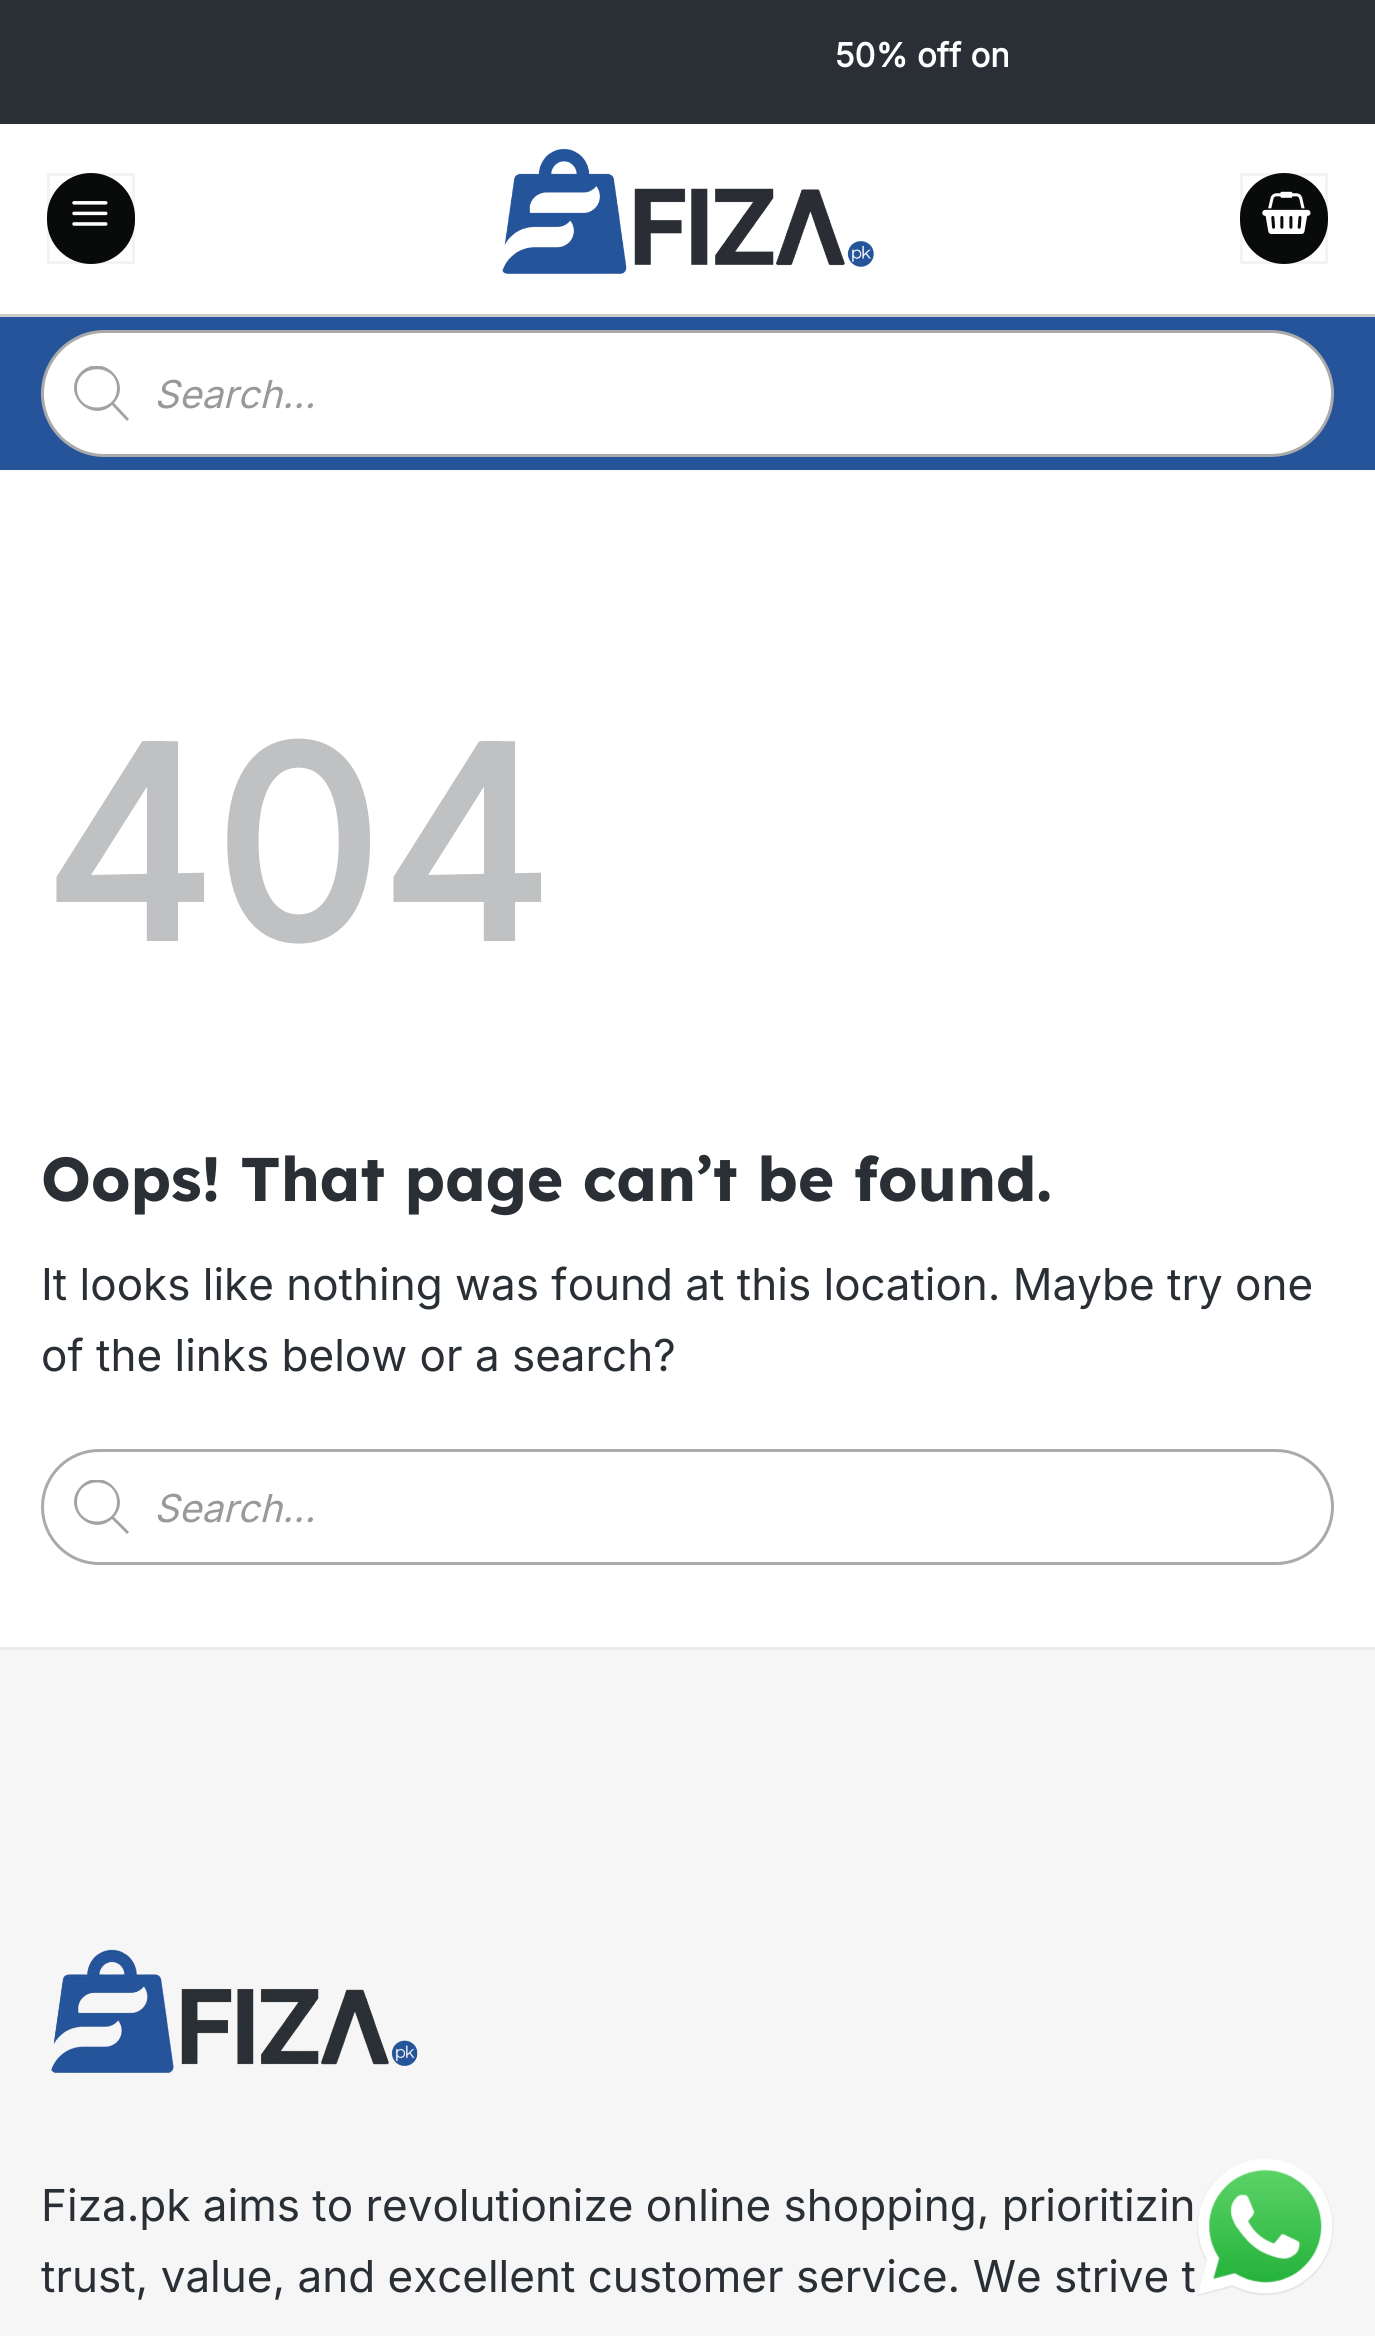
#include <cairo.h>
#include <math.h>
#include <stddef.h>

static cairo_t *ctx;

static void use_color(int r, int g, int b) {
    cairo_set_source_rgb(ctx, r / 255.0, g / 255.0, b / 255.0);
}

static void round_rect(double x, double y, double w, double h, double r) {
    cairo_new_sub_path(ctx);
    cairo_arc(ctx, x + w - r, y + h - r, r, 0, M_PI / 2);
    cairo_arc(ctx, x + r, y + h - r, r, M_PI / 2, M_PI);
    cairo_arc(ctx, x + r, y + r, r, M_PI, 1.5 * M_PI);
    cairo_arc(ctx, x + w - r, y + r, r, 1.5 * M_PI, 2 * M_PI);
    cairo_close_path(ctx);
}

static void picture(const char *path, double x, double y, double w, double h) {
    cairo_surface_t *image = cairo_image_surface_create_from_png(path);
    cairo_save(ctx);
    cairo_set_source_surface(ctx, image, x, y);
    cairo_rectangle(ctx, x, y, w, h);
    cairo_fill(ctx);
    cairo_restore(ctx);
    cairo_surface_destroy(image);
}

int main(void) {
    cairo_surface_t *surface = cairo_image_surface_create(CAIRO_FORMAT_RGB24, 1375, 2336);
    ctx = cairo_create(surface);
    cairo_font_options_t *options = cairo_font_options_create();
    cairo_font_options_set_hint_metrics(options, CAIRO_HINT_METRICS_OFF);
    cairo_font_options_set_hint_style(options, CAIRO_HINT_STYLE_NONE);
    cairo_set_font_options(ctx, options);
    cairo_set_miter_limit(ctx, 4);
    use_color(255, 255, 255);
    cairo_paint(ctx);
    use_color(41, 47, 52);
    cairo_rectangle(ctx, 0, 0, 1375, 124);
    cairo_fill(ctx);
    cairo_select_font_face(ctx, "Inter", CAIRO_FONT_SLANT_NORMAL, CAIRO_FONT_WEIGHT_BOLD);
    cairo_set_font_size(ctx, 33);
    use_color(255, 255, 255);
    cairo_move_to(ctx, 835, 67);
    cairo_show_text(ctx, "50% off on");
    use_color(204, 204, 204);
    cairo_rectangle(ctx, 0, 314, 1375, 3);
    cairo_fill(ctx);
    use_color(9, 10, 10);
    round_rect(47, 173, 88, 91, 44);
    cairo_fill(ctx);
    cairo_rectangle(ctx, 48.5, 174.5, 85, 88);
    cairo_set_source_rgba(ctx, 0, 0, 0, 0.05);
    cairo_set_line_width(ctx, 3);
    cairo_stroke(ctx);
    picture("img1.png", 72, 201, 36, 25);
    picture("img2.png", 501, 148, 373, 126);
    use_color(9, 10, 10);
    round_rect(1240, 173, 88, 91, 44);
    cairo_fill(ctx);
    cairo_rectangle(ctx, 1241.5, 174.5, 85, 88);
    cairo_set_source_rgba(ctx, 0, 0, 0, 0.05);
    cairo_stroke(ctx);
    picture("img3.png", 1262, 191, 49, 43);
    use_color(37, 84, 154);
    cairo_rectangle(ctx, 0, 317, 1375, 153);
    cairo_fill(ctx);
    use_color(255, 255, 255);
    round_rect(42.5, 331.5, 1290, 124, 62);
    cairo_fill_preserve(ctx);
    use_color(170, 170, 170);
    cairo_stroke(ctx);
    cairo_save(ctx);
    cairo_rectangle(ctx, 74, 366, 55, 55);
    cairo_clip(ctx);
    use_color(162, 162, 162);
    cairo_new_path(ctx);
    cairo_move_to(ctx, 129, 419);
    cairo_line_to(ctx, 114, 403);
    cairo_curve_to(ctx, 133, 382, 102, 352, 81, 372);
    cairo_curve_to(ctx, 60, 393, 91, 424, 112, 405);
    cairo_line_to(ctx, 127, 421);
    cairo_close_path(ctx);
    cairo_move_to(ctx, 77, 388);
    cairo_curve_to(ctx, 77, 363, 117, 363, 117, 388);
    cairo_curve_to(ctx, 117, 414, 77, 414, 77, 388);
    cairo_close_path(ctx);
    cairo_fill(ctx);
    cairo_restore(ctx);
    cairo_select_font_face(ctx, "Inter", CAIRO_FONT_SLANT_ITALIC, CAIRO_FONT_WEIGHT_NORMAL);
    cairo_set_font_size(ctx, 38.5);
    use_color(153, 153, 153);
    cairo_move_to(ctx, 154, 408);
    cairo_show_text(ctx, "Search...");
    cairo_select_font_face(ctx, "Inter", CAIRO_FONT_SLANT_NORMAL, CAIRO_FONT_WEIGHT_BOLD);
    cairo_set_font_size(ctx, 264);
    use_color(191, 193, 194);
    cairo_move_to(ctx, 41, 941);
    cairo_show_text(ctx, "404");
    cairo_select_font_face(ctx, "Lexend", CAIRO_FONT_SLANT_NORMAL, CAIRO_FONT_WEIGHT_BOLD);
    cairo_set_font_size(ctx, 61.6);
    use_color(41, 47, 52);
    cairo_move_to(ctx, 41, 1201);
    cairo_show_text(ctx, "Oops! That page can’t be found.");
    cairo_select_font_face(ctx, "Inter", CAIRO_FONT_SLANT_NORMAL, CAIRO_FONT_WEIGHT_NORMAL);
    cairo_set_font_size(ctx, 44);
    cairo_move_to(ctx, 41, 1300);
    cairo_show_text(ctx, "It looks like nothing was found at this location. Maybe try one");
    cairo_move_to(ctx, 41, 1371);
    cairo_show_text(ctx, "of the links below or a search?");
    round_rect(42.5, 1450.5, 1290, 113, 56.5);
    use_color(170, 170, 170);
    cairo_stroke(ctx);
    cairo_save(ctx);
    cairo_rectangle(ctx, 74, 1480, 55, 55);
    cairo_clip(ctx);
    use_color(162, 162, 162);
    cairo_new_path(ctx);
    cairo_move_to(ctx, 129, 1532);
    cairo_line_to(ctx, 114, 1517);
    cairo_curve_to(ctx, 133, 1496, 102, 1465, 81, 1486);
    cairo_curve_to(ctx, 60, 1507, 91, 1538, 112, 1519);
    cairo_line_to(ctx, 127, 1534);
    cairo_close_path(ctx);
    cairo_move_to(ctx, 77, 1502);
    cairo_curve_to(ctx, 77, 1476, 117, 1476, 117, 1502);
    cairo_curve_to(ctx, 117, 1528, 77, 1528, 77, 1502);
    cairo_close_path(ctx);
    cairo_fill(ctx);
    cairo_restore(ctx);
    cairo_select_font_face(ctx, "Inter", CAIRO_FONT_SLANT_ITALIC, CAIRO_FONT_WEIGHT_NORMAL);
    cairo_set_font_size(ctx, 38.5);
    use_color(153, 153, 153);
    cairo_move_to(ctx, 154, 1522);
    cairo_show_text(ctx, "Search...");
    use_color(246, 246, 246);
    cairo_rectangle(ctx, 0, 1650, 1375, 686);
    cairo_fill(ctx);
    use_color(234, 234, 234);
    cairo_rectangle(ctx, 0, 1647, 1375, 3);
    cairo_fill(ctx);
    picture("img4.png", 50, 1949, 368, 124);
    cairo_select_font_face(ctx, "Inter", CAIRO_FONT_SLANT_NORMAL, CAIRO_FONT_WEIGHT_NORMAL);
    cairo_set_font_size(ctx, 44);
    use_color(41, 47, 52);
    cairo_move_to(ctx, 41, 2221);
    cairo_show_text(ctx, "Fiza.pk aims to revolutionize online shopping, prioritizin");
    cairo_move_to(ctx, 41, 2292);
    cairo_show_text(ctx, "trust, value, and excellent customer service. We strive t");
    picture("img5.png", 1196, 2159, 138, 137);
    cairo_surface_write_to_png(surface, "result.png");
    cairo_font_options_destroy(options);
    cairo_destroy(ctx);
    cairo_surface_destroy(surface);
    return 0;
}
